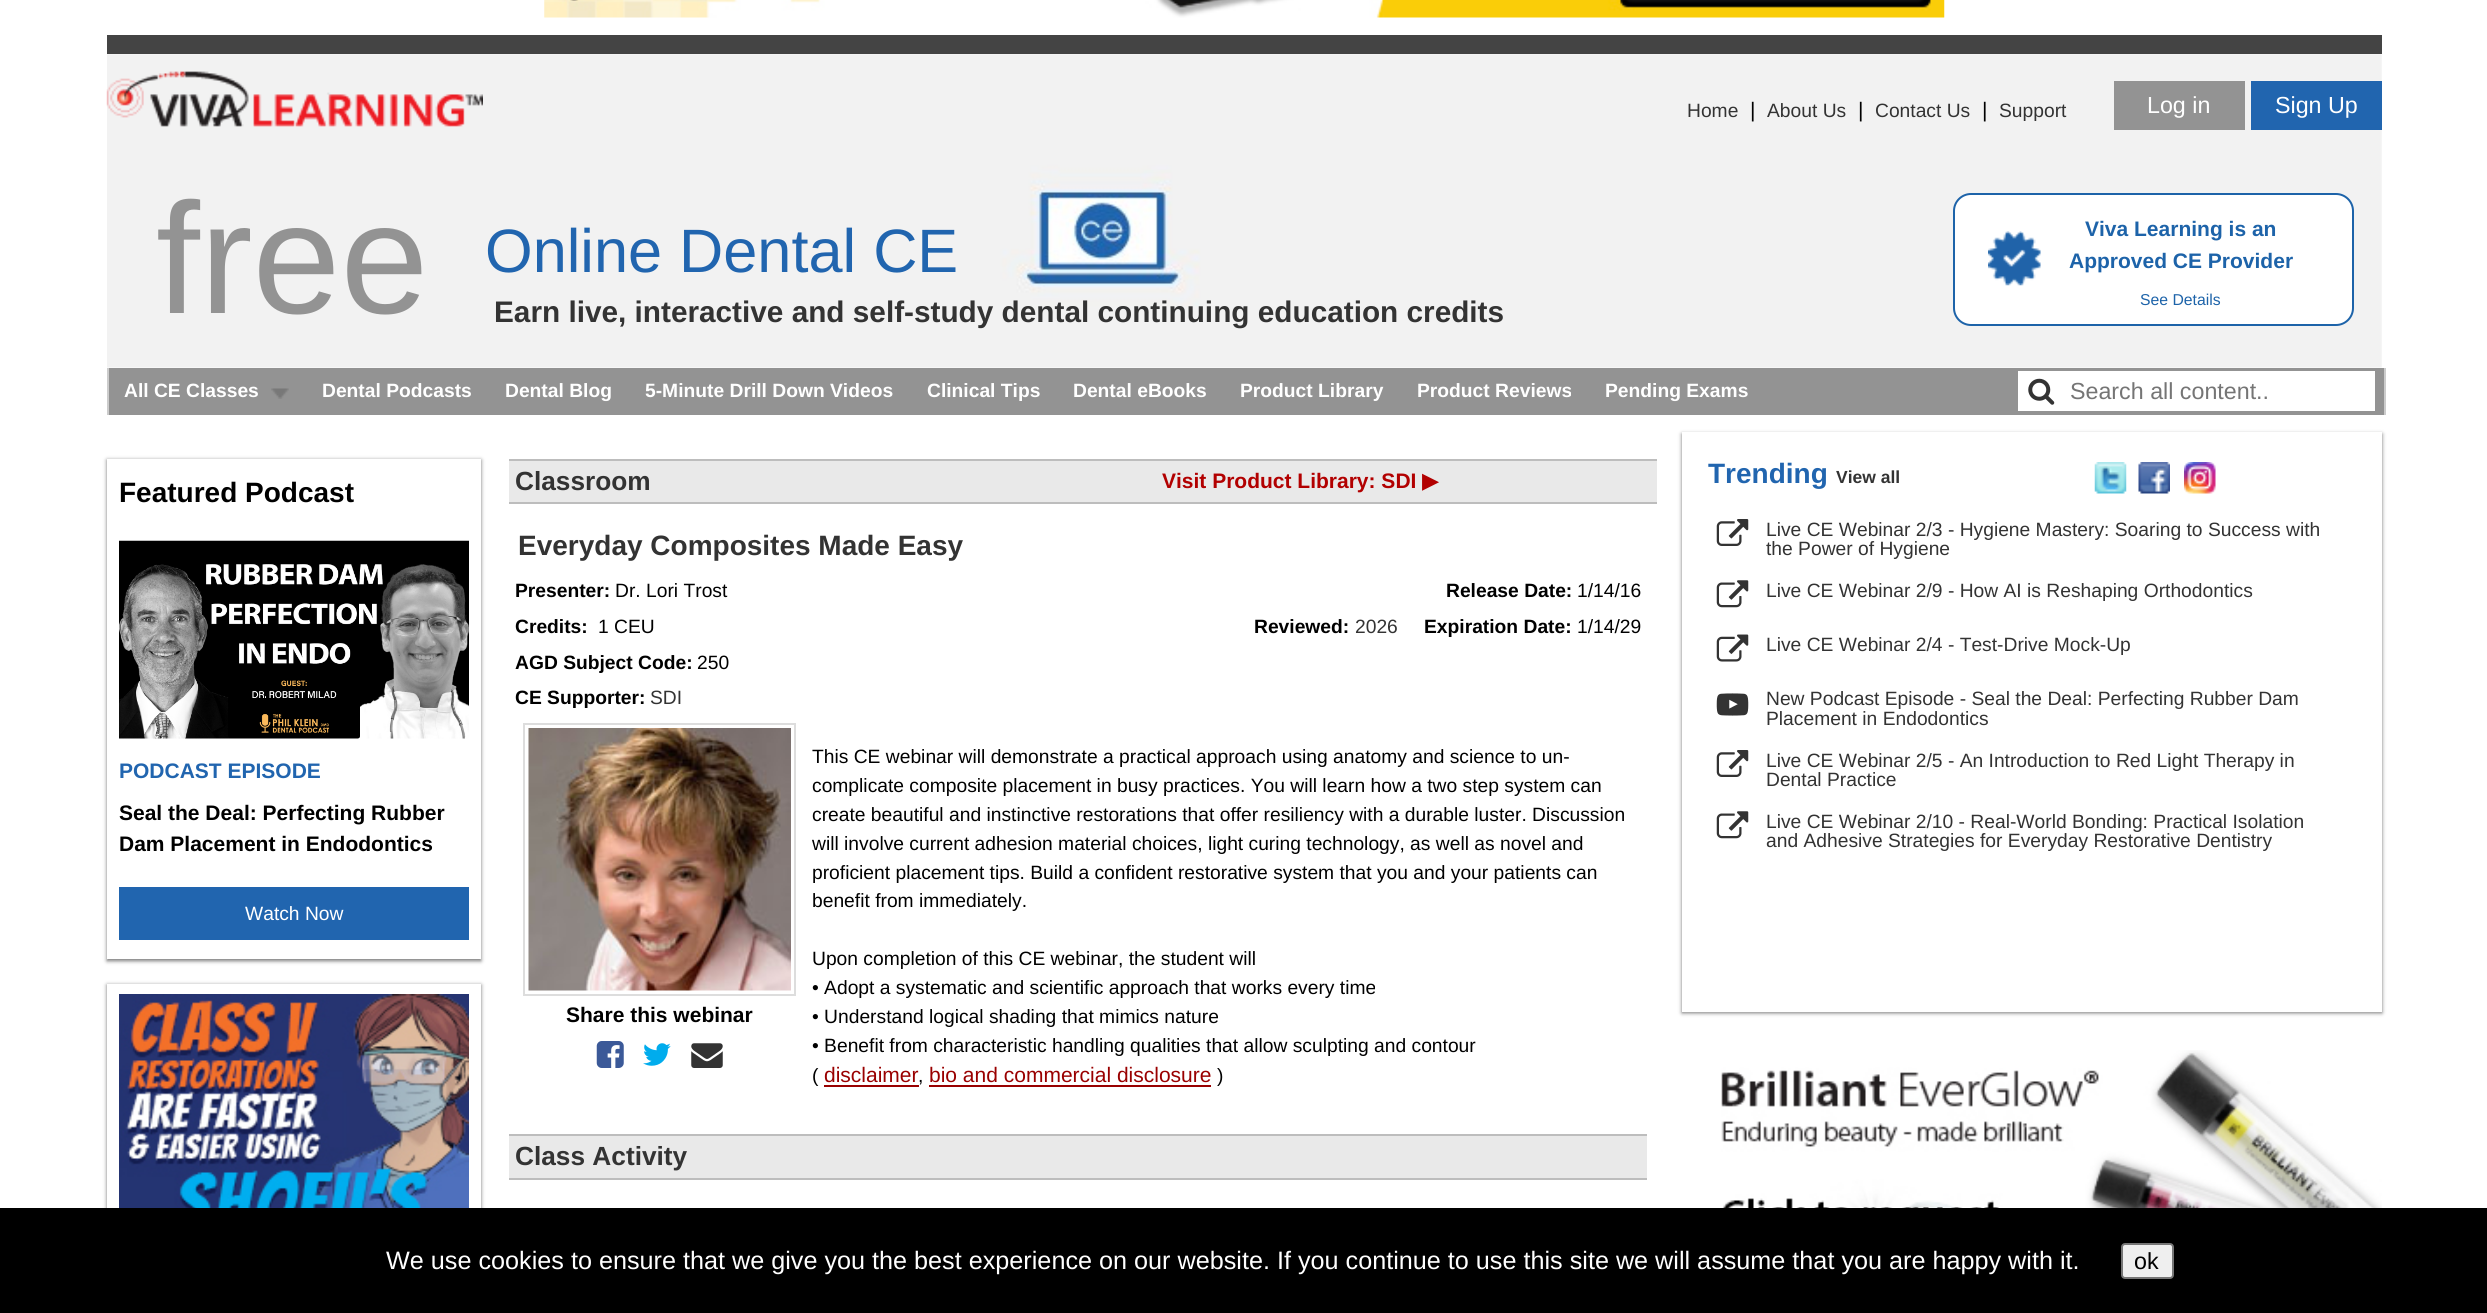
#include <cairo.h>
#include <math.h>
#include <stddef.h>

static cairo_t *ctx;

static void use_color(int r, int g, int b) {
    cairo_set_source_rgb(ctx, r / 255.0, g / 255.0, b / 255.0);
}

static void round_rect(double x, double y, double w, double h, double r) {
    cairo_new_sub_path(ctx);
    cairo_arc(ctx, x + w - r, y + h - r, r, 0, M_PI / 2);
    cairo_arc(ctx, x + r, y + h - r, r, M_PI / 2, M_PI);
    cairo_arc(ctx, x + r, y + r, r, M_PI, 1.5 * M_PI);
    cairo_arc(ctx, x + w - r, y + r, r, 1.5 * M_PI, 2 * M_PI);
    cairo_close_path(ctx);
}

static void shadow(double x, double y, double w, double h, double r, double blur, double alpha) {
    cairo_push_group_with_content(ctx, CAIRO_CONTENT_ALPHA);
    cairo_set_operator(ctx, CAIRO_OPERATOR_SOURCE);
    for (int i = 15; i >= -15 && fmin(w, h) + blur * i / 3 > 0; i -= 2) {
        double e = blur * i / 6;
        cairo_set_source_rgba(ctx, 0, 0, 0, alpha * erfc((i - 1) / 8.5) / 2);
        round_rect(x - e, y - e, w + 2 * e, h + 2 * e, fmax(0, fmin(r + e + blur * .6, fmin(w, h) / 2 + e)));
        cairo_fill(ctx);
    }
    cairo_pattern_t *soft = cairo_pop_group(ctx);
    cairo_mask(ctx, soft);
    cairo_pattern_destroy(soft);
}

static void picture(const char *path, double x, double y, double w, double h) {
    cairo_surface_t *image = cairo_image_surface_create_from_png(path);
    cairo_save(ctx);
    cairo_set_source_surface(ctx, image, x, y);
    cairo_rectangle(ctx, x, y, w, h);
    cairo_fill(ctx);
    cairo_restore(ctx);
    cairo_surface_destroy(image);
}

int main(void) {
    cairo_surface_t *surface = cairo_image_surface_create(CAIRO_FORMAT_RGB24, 2487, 1313);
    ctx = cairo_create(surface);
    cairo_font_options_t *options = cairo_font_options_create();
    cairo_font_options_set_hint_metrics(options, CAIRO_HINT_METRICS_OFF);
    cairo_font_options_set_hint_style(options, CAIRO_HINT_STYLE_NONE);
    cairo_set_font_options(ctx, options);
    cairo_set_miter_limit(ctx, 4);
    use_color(255, 255, 255);
    cairo_paint(ctx);
    picture("img1.png", 544, 0, 1401, 18);
    use_color(68, 68, 68);
    cairo_rectangle(ctx, 107, 35, 2275, 19);
    cairo_fill(ctx);
    picture("img2.png", 107, 54, 2275, 314);
    picture("img3.png", 106, 71, 377, 56);
    cairo_select_font_face(ctx, "Liberation Sans", CAIRO_FONT_SLANT_NORMAL, CAIRO_FONT_WEIGHT_NORMAL);
    cairo_set_font_size(ctx, 19.25);
    use_color(51, 51, 51);
    cairo_move_to(ctx, 1687, 117);
    cairo_show_text(ctx, "Home");
    cairo_set_font_size(ctx, 21);
    use_color(0, 0, 0);
    cairo_move_to(ctx, 1750, 117);
    cairo_show_text(ctx, "|");
    cairo_set_font_size(ctx, 19.25);
    use_color(51, 51, 51);
    cairo_move_to(ctx, 1767, 117);
    cairo_show_text(ctx, "About Us");
    cairo_set_font_size(ctx, 21);
    use_color(0, 0, 0);
    cairo_move_to(ctx, 1858, 117);
    cairo_show_text(ctx, "|");
    cairo_set_font_size(ctx, 19.25);
    use_color(51, 51, 51);
    cairo_move_to(ctx, 1875, 117);
    cairo_show_text(ctx, "Contact Us");
    cairo_set_font_size(ctx, 21);
    use_color(0, 0, 0);
    cairo_move_to(ctx, 1982, 117);
    cairo_show_text(ctx, "|");
    cairo_set_font_size(ctx, 19.25);
    use_color(51, 51, 51);
    cairo_move_to(ctx, 1999, 117);
    cairo_show_text(ctx, "Support");
    use_color(147, 147, 147);
    cairo_rectangle(ctx, 2114, 81, 131, 49);
    cairo_fill(ctx);
    cairo_set_font_size(ctx, 23.25);
    use_color(255, 255, 255);
    cairo_move_to(ctx, 2147, 113);
    cairo_show_text(ctx, "Log in");
    use_color(33, 101, 175);
    cairo_rectangle(ctx, 2251, 81, 131, 49);
    cairo_fill(ctx);
    use_color(255, 255, 255);
    cairo_move_to(ctx, 2275, 113);
    cairo_show_text(ctx, "Sign Up");
    cairo_set_font_size(ctx, 158);
    use_color(147, 147, 147);
    cairo_move_to(ctx, 156, 313);
    cairo_show_text(ctx, "free");
    cairo_set_font_size(ctx, 61.25);
    use_color(33, 101, 175);
    cairo_move_to(ctx, 485, 272);
    cairo_show_text(ctx, "Online Dental CE");
    use_color(255, 255, 255);
    round_rect(1954, 194, 399, 131, 17);
    cairo_fill_preserve(ctx);
    use_color(29, 99, 169);
    cairo_stroke(ctx);
    picture("img4.png", 1988, 231, 53, 55);
    cairo_select_font_face(ctx, "Liberation Sans", CAIRO_FONT_SLANT_NORMAL, CAIRO_FONT_WEIGHT_BOLD);
    cairo_set_font_size(ctx, 21);
    cairo_move_to(ctx, 2085, 236);
    cairo_show_text(ctx, "Viva Learning is an");
    cairo_move_to(ctx, 2069, 268);
    cairo_show_text(ctx, "Approved CE Provider");
    cairo_select_font_face(ctx, "Liberation Sans", CAIRO_FONT_SLANT_NORMAL, CAIRO_FONT_WEIGHT_NORMAL);
    cairo_set_font_size(ctx, 15.75);
    cairo_move_to(ctx, 2140, 305);
    cairo_show_text(ctx, "See Details");
    cairo_select_font_face(ctx, "Liberation Sans", CAIRO_FONT_SLANT_NORMAL, CAIRO_FONT_WEIGHT_BOLD);
    cairo_set_font_size(ctx, 29.75);
    use_color(51, 51, 51);
    cairo_move_to(ctx, 494, 322);
    cairo_show_text(ctx, "Earn live, interactive and self-study dental continuing education credits");
    use_color(147, 147, 147);
    cairo_rectangle(ctx, 109, 368, 2275, 47);
    cairo_fill(ctx);
    use_color(204, 204, 204);
    cairo_rectangle(ctx, 2384, 368, 2, 47);
    cairo_fill(ctx);
    cairo_rectangle(ctx, 107, 368, 2, 47);
    cairo_fill(ctx);
    picture("img5.png", 271, 388, 18, 11);
    cairo_set_font_size(ctx, 19.25);
    use_color(255, 255, 255);
    cairo_move_to(ctx, 124, 397);
    cairo_show_text(ctx, "All CE Classes");
    cairo_move_to(ctx, 322, 397);
    cairo_show_text(ctx, "Dental Podcasts");
    cairo_move_to(ctx, 505, 397);
    cairo_show_text(ctx, "Dental Blog");
    cairo_move_to(ctx, 645, 397);
    cairo_show_text(ctx, "5-Minute Drill Down Videos");
    cairo_move_to(ctx, 927, 397);
    cairo_show_text(ctx, "Clinical Tips");
    cairo_move_to(ctx, 1073, 397);
    cairo_show_text(ctx, "Dental eBooks");
    cairo_move_to(ctx, 1240, 397);
    cairo_show_text(ctx, "Product Library");
    cairo_move_to(ctx, 1417, 397);
    cairo_show_text(ctx, "Product Reviews");
    cairo_move_to(ctx, 1605, 397);
    cairo_show_text(ctx, "Pending Exams");
    cairo_rectangle(ctx, 2018, 371, 357, 40);
    cairo_fill(ctx);
    picture("img6.png", 2028, 378, 27, 27);
    cairo_select_font_face(ctx, "Liberation Sans", CAIRO_FONT_SLANT_NORMAL, CAIRO_FONT_WEIGHT_NORMAL);
    cairo_set_font_size(ctx, 23.25);
    use_color(117, 117, 117);
    cairo_move_to(ctx, 2070, 399);
    cairo_show_text(ctx, "Search all content..");
    cairo_save(ctx);
    cairo_set_fill_rule(ctx, CAIRO_FILL_RULE_EVEN_ODD);
    cairo_new_path(ctx);
    cairo_move_to(ctx, 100, 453);
    cairo_line_to(ctx, 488, 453);
    cairo_line_to(ctx, 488, 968);
    cairo_line_to(ctx, 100, 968);
    cairo_close_path(ctx);
    cairo_move_to(ctx, 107, 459);
    cairo_line_to(ctx, 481, 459);
    cairo_line_to(ctx, 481, 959);
    cairo_line_to(ctx, 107, 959);
    cairo_close_path(ctx);
    cairo_clip(ctx);
    use_color(119, 119, 119);
    shadow(107, 460, 374, 501, 0, 2, 1);
    cairo_restore(ctx);
    cairo_select_font_face(ctx, "Liberation Sans", CAIRO_FONT_SLANT_NORMAL, CAIRO_FONT_WEIGHT_BOLD);
    cairo_set_font_size(ctx, 28);
    use_color(0, 0, 0);
    cairo_move_to(ctx, 119, 502);
    cairo_show_text(ctx, "Featured Podcast");
    picture("img7.png", 119, 540, 350, 199);
    cairo_set_font_size(ctx, 21);
    use_color(33, 101, 175);
    cairo_move_to(ctx, 119, 778);
    cairo_show_text(ctx, "PODCAST EPISODE");
    use_color(0, 0, 0);
    cairo_move_to(ctx, 119, 820);
    cairo_show_text(ctx, "Seal the Deal: Perfecting Rubber");
    cairo_move_to(ctx, 119, 851);
    cairo_show_text(ctx, "Dam Placement in Endodontics");
    use_color(33, 101, 175);
    cairo_rectangle(ctx, 119, 887, 350, 53);
    cairo_fill(ctx);
    cairo_select_font_face(ctx, "Liberation Sans", CAIRO_FONT_SLANT_NORMAL, CAIRO_FONT_WEIGHT_NORMAL);
    cairo_set_font_size(ctx, 19.25);
    use_color(255, 255, 255);
    cairo_move_to(ctx, 245, 920);
    cairo_show_text(ctx, "Watch Now");
    cairo_save(ctx);
    cairo_set_fill_rule(ctx, CAIRO_FILL_RULE_EVEN_ODD);
    cairo_new_path(ctx);
    cairo_move_to(ctx, 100, 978);
    cairo_line_to(ctx, 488, 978);
    cairo_line_to(ctx, 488, 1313);
    cairo_line_to(ctx, 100, 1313);
    cairo_close_path(ctx);
    cairo_move_to(ctx, 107, 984);
    cairo_line_to(ctx, 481, 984);
    cairo_line_to(ctx, 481, 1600);
    cairo_line_to(ctx, 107, 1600);
    cairo_close_path(ctx);
    cairo_clip(ctx);
    use_color(119, 119, 119);
    shadow(107, 985, 374, 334, 0, 2, 1);
    cairo_restore(ctx);
    picture("img8.png", 119, 994, 350, 214);
    use_color(233, 233, 233);
    cairo_rectangle(ctx, 509, 461, 1148, 41);
    cairo_fill(ctx);
    use_color(189, 189, 189);
    cairo_rectangle(ctx, 509, 459, 1148, 2);
    cairo_fill(ctx);
    cairo_rectangle(ctx, 509, 502, 1148, 2);
    cairo_fill(ctx);
    cairo_select_font_face(ctx, "Liberation Sans", CAIRO_FONT_SLANT_NORMAL, CAIRO_FONT_WEIGHT_BOLD);
    cairo_set_font_size(ctx, 26.25);
    use_color(51, 51, 51);
    cairo_move_to(ctx, 515, 490);
    cairo_show_text(ctx, "Classroom");
    cairo_set_font_size(ctx, 21);
    use_color(178, 0, 0);
    cairo_move_to(ctx, 1162, 488);
    cairo_show_text(ctx, "Visit Product Library: SDI");
    cairo_select_font_face(ctx, "DejaVu Sans", CAIRO_FONT_SLANT_NORMAL, CAIRO_FONT_WEIGHT_BOLD);
    cairo_move_to(ctx, 1422, 488);
    cairo_show_text(ctx, "▶");
    cairo_select_font_face(ctx, "Liberation Sans", CAIRO_FONT_SLANT_NORMAL, CAIRO_FONT_WEIGHT_BOLD);
    cairo_set_font_size(ctx, 28);
    use_color(51, 51, 51);
    cairo_move_to(ctx, 518, 555);
    cairo_show_text(ctx, "Everyday Composites Made Easy");
    cairo_set_font_size(ctx, 19.25);
    use_color(0, 0, 0);
    cairo_move_to(ctx, 515, 597);
    cairo_show_text(ctx, "Presenter:");
    cairo_select_font_face(ctx, "Liberation Sans", CAIRO_FONT_SLANT_NORMAL, CAIRO_FONT_WEIGHT_NORMAL);
    cairo_move_to(ctx, 615, 597);
    cairo_show_text(ctx, "Dr. Lori Trost");
    cairo_select_font_face(ctx, "Liberation Sans", CAIRO_FONT_SLANT_NORMAL, CAIRO_FONT_WEIGHT_BOLD);
    cairo_move_to(ctx, 1446, 597);
    cairo_show_text(ctx, "Release Date:");
    cairo_select_font_face(ctx, "Liberation Sans", CAIRO_FONT_SLANT_NORMAL, CAIRO_FONT_WEIGHT_NORMAL);
    cairo_move_to(ctx, 1577, 597);
    cairo_show_text(ctx, "1/14/16");
    cairo_select_font_face(ctx, "Liberation Sans", CAIRO_FONT_SLANT_NORMAL, CAIRO_FONT_WEIGHT_BOLD);
    cairo_move_to(ctx, 515, 633);
    cairo_show_text(ctx, "Credits:");
    cairo_select_font_face(ctx, "Liberation Sans", CAIRO_FONT_SLANT_NORMAL, CAIRO_FONT_WEIGHT_NORMAL);
    cairo_move_to(ctx, 598, 633);
    cairo_show_text(ctx, "1 CEU");
    cairo_select_font_face(ctx, "Liberation Sans", CAIRO_FONT_SLANT_NORMAL, CAIRO_FONT_WEIGHT_BOLD);
    cairo_move_to(ctx, 1254, 633);
    cairo_show_text(ctx, "Reviewed:");
    cairo_select_font_face(ctx, "Liberation Sans", CAIRO_FONT_SLANT_NORMAL, CAIRO_FONT_WEIGHT_NORMAL);
    use_color(51, 51, 51);
    cairo_move_to(ctx, 1355, 633);
    cairo_show_text(ctx, "2026");
    cairo_select_font_face(ctx, "Liberation Sans", CAIRO_FONT_SLANT_NORMAL, CAIRO_FONT_WEIGHT_BOLD);
    use_color(0, 0, 0);
    cairo_move_to(ctx, 1424, 633);
    cairo_show_text(ctx, "Expiration Date:");
    cairo_select_font_face(ctx, "Liberation Sans", CAIRO_FONT_SLANT_NORMAL, CAIRO_FONT_WEIGHT_NORMAL);
    cairo_move_to(ctx, 1577, 633);
    cairo_show_text(ctx, "1/14/29");
    cairo_select_font_face(ctx, "Liberation Sans", CAIRO_FONT_SLANT_NORMAL, CAIRO_FONT_WEIGHT_BOLD);
    cairo_move_to(ctx, 515, 669);
    cairo_show_text(ctx, "AGD Subject Code:");
    cairo_select_font_face(ctx, "Liberation Sans", CAIRO_FONT_SLANT_NORMAL, CAIRO_FONT_WEIGHT_NORMAL);
    cairo_move_to(ctx, 697, 669);
    cairo_show_text(ctx, "250");
    cairo_select_font_face(ctx, "Liberation Sans", CAIRO_FONT_SLANT_NORMAL, CAIRO_FONT_WEIGHT_BOLD);
    cairo_move_to(ctx, 515, 704);
    cairo_show_text(ctx, "CE Supporter:");
    cairo_select_font_face(ctx, "Liberation Sans", CAIRO_FONT_SLANT_NORMAL, CAIRO_FONT_WEIGHT_NORMAL);
    use_color(51, 51, 51);
    cairo_move_to(ctx, 650, 704);
    cairo_show_text(ctx, "SDI");
    cairo_rectangle(ctx, 524, 724, 271, 271);
    use_color(221, 221, 221);
    cairo_stroke(ctx);
    picture("img9.png", 528, 728, 263, 263);
    cairo_select_font_face(ctx, "Liberation Sans", CAIRO_FONT_SLANT_NORMAL, CAIRO_FONT_WEIGHT_BOLD);
    cairo_set_font_size(ctx, 21);
    use_color(0, 0, 0);
    cairo_move_to(ctx, 566, 1022);
    cairo_show_text(ctx, "Share this webinar");
    picture("img10.png", 596, 1041, 28, 27);
    picture("img11.png", 643, 1043, 28, 23);
    picture("img12.png", 691, 1043, 32, 25);
    cairo_select_font_face(ctx, "Liberation Sans", CAIRO_FONT_SLANT_NORMAL, CAIRO_FONT_WEIGHT_NORMAL);
    cairo_set_font_size(ctx, 19.25);
    cairo_move_to(ctx, 812, 763);
    cairo_show_text(ctx, "This CE webinar will demonstrate a practical approach using anatomy and science to un-");
    cairo_move_to(ctx, 812, 792);
    cairo_show_text(ctx, "complicate composite placement in busy practices. You will learn how a two step system can");
    cairo_move_to(ctx, 812, 821);
    cairo_show_text(ctx, "create beautiful and instinctive restorations that offer resiliency with a durable luster. Discussion");
    cairo_move_to(ctx, 812, 850);
    cairo_show_text(ctx, "will involve current adhesion material choices, light curing technology, as well as novel and");
    cairo_move_to(ctx, 812, 879);
    cairo_show_text(ctx, "proficient placement tips. Build a confident restorative system that you and your patients can");
    cairo_move_to(ctx, 812, 907);
    cairo_show_text(ctx, "benefit from immediately.");
    cairo_move_to(ctx, 812, 965);
    cairo_show_text(ctx, "Upon completion of this CE webinar, the student will");
    cairo_move_to(ctx, 812, 994);
    cairo_show_text(ctx, "• Adopt a systematic and scientific approach that works every time");
    cairo_move_to(ctx, 812, 1023);
    cairo_show_text(ctx, "• Understand logical shading that mimics nature");
    cairo_move_to(ctx, 812, 1052);
    cairo_show_text(ctx, "• Benefit from characteristic handling qualities that allow sculpting and contour");
    cairo_move_to(ctx, 812, 1082);
    cairo_show_text(ctx, "(");
    cairo_set_font_size(ctx, 21);
    use_color(153, 0, 0);
    cairo_move_to(ctx, 824, 1082);
    cairo_show_text(ctx, "disclaimer");
    cairo_set_font_size(ctx, 19.25);
    use_color(0, 0, 0);
    cairo_move_to(ctx, 918, 1082);
    cairo_show_text(ctx, ",");
    use_color(153, 0, 0);
    cairo_rectangle(ctx, 824, 1085, 95, 2);
    cairo_fill(ctx);
    cairo_rectangle(ctx, 929, 1085, 282, 2);
    cairo_fill(ctx);
    cairo_set_font_size(ctx, 21);
    cairo_move_to(ctx, 929, 1082);
    cairo_show_text(ctx, "bio and commercial disclosure");
    cairo_set_font_size(ctx, 19.25);
    use_color(0, 0, 0);
    cairo_move_to(ctx, 1217, 1082);
    cairo_show_text(ctx, ")");
    use_color(233, 233, 233);
    cairo_rectangle(ctx, 509, 1136, 1138, 42);
    cairo_fill(ctx);
    use_color(189, 189, 189);
    cairo_rectangle(ctx, 509, 1134, 1138, 2);
    cairo_fill(ctx);
    cairo_rectangle(ctx, 509, 1178, 1138, 2);
    cairo_fill(ctx);
    cairo_select_font_face(ctx, "Liberation Sans", CAIRO_FONT_SLANT_NORMAL, CAIRO_FONT_WEIGHT_BOLD);
    cairo_set_font_size(ctx, 26.25);
    use_color(51, 51, 51);
    cairo_move_to(ctx, 515, 1165);
    cairo_show_text(ctx, "Class Activity");
    cairo_save(ctx);
    cairo_set_fill_rule(ctx, CAIRO_FILL_RULE_EVEN_ODD);
    cairo_new_path(ctx);
    cairo_move_to(ctx, 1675, 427);
    cairo_line_to(ctx, 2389, 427);
    cairo_line_to(ctx, 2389, 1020);
    cairo_line_to(ctx, 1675, 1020);
    cairo_close_path(ctx);
    cairo_move_to(ctx, 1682, 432);
    cairo_line_to(ctx, 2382, 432);
    cairo_line_to(ctx, 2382, 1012);
    cairo_line_to(ctx, 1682, 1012);
    cairo_close_path(ctx);
    cairo_clip(ctx);
    use_color(119, 119, 119);
    shadow(1682, 434, 700, 579, 0, 2, 1);
    cairo_restore(ctx);
    cairo_set_font_size(ctx, 28);
    use_color(33, 101, 175);
    cairo_move_to(ctx, 1708, 483);
    cairo_show_text(ctx, "Trending");
    cairo_set_font_size(ctx, 17.5);
    use_color(51, 51, 51);
    cairo_move_to(ctx, 1836, 483);
    cairo_show_text(ctx, "View all");
    picture("img13.png", 2094, 462, 33, 32);
    picture("img14.png", 2138, 462, 32, 32);
    picture("img15.png", 2184, 462, 32, 32);
    picture("img16.png", 1716, 519, 33, 27);
    cairo_select_font_face(ctx, "Liberation Sans", CAIRO_FONT_SLANT_NORMAL, CAIRO_FONT_WEIGHT_NORMAL);
    cairo_set_font_size(ctx, 19.25);
    cairo_move_to(ctx, 1766, 536);
    cairo_show_text(ctx, "Live CE Webinar 2/3 - Hygiene Mastery: Soaring to Success with");
    cairo_move_to(ctx, 1766, 555);
    cairo_show_text(ctx, "the Power of Hygiene");
    picture("img17.png", 1716, 580, 33, 28);
    cairo_move_to(ctx, 1766, 597);
    cairo_show_text(ctx, "Live CE Webinar 2/9 - How AI is Reshaping Orthodontics");
    picture("img18.png", 1716, 634, 33, 28);
    cairo_move_to(ctx, 1766, 651);
    cairo_show_text(ctx, "Live CE Webinar 2/4 - Test-Drive Mock-Up");
    picture("img19.png", 1716, 693, 33, 23);
    cairo_move_to(ctx, 1766, 705);
    cairo_show_text(ctx, "New Podcast Episode - Seal the Deal: Perfecting Rubber Dam");
    cairo_move_to(ctx, 1766, 725);
    cairo_show_text(ctx, "Placement in Endodontics");
    picture("img16.png", 1716, 750, 33, 27);
    cairo_move_to(ctx, 1766, 767);
    cairo_show_text(ctx, "Live CE Webinar 2/5 - An Introduction to Red Light Therapy in");
    cairo_move_to(ctx, 1766, 786);
    cairo_show_text(ctx, "Dental Practice");
    picture("img17.png", 1716, 811, 33, 28);
    cairo_move_to(ctx, 1766, 828);
    cairo_show_text(ctx, "Live CE Webinar 2/10 - Real-World Bonding: Practical Isolation");
    cairo_move_to(ctx, 1766, 847);
    cairo_show_text(ctx, "and Adhesive Strategies for Everyday Restorative Dentistry");
    picture("img20.png", 1721, 1050, 661, 158);
    use_color(0, 0, 0);
    cairo_rectangle(ctx, 0, 1208, 2487, 105);
    cairo_fill(ctx);
    cairo_set_font_size(ctx, 25.2);
    use_color(255, 255, 255);
    cairo_move_to(ctx, 386, 1269);
    cairo_show_text(ctx, "We use cookies to ensure that we give you the best experience on our website. If you continue to use this site we will assume that you are happy with it.");
    use_color(239, 239, 239);
    round_rect(2122, 1244, 51, 34, 3);
    cairo_fill_preserve(ctx);
    use_color(118, 118, 118);
    cairo_stroke(ctx);
    cairo_set_font_size(ctx, 23.25);
    use_color(0, 0, 0);
    cairo_move_to(ctx, 2134, 1269);
    cairo_show_text(ctx, "ok");
    cairo_surface_write_to_png(surface, "result.png");
    cairo_font_options_destroy(options);
    cairo_destroy(ctx);
    cairo_surface_destroy(surface);
    return 0;
}
